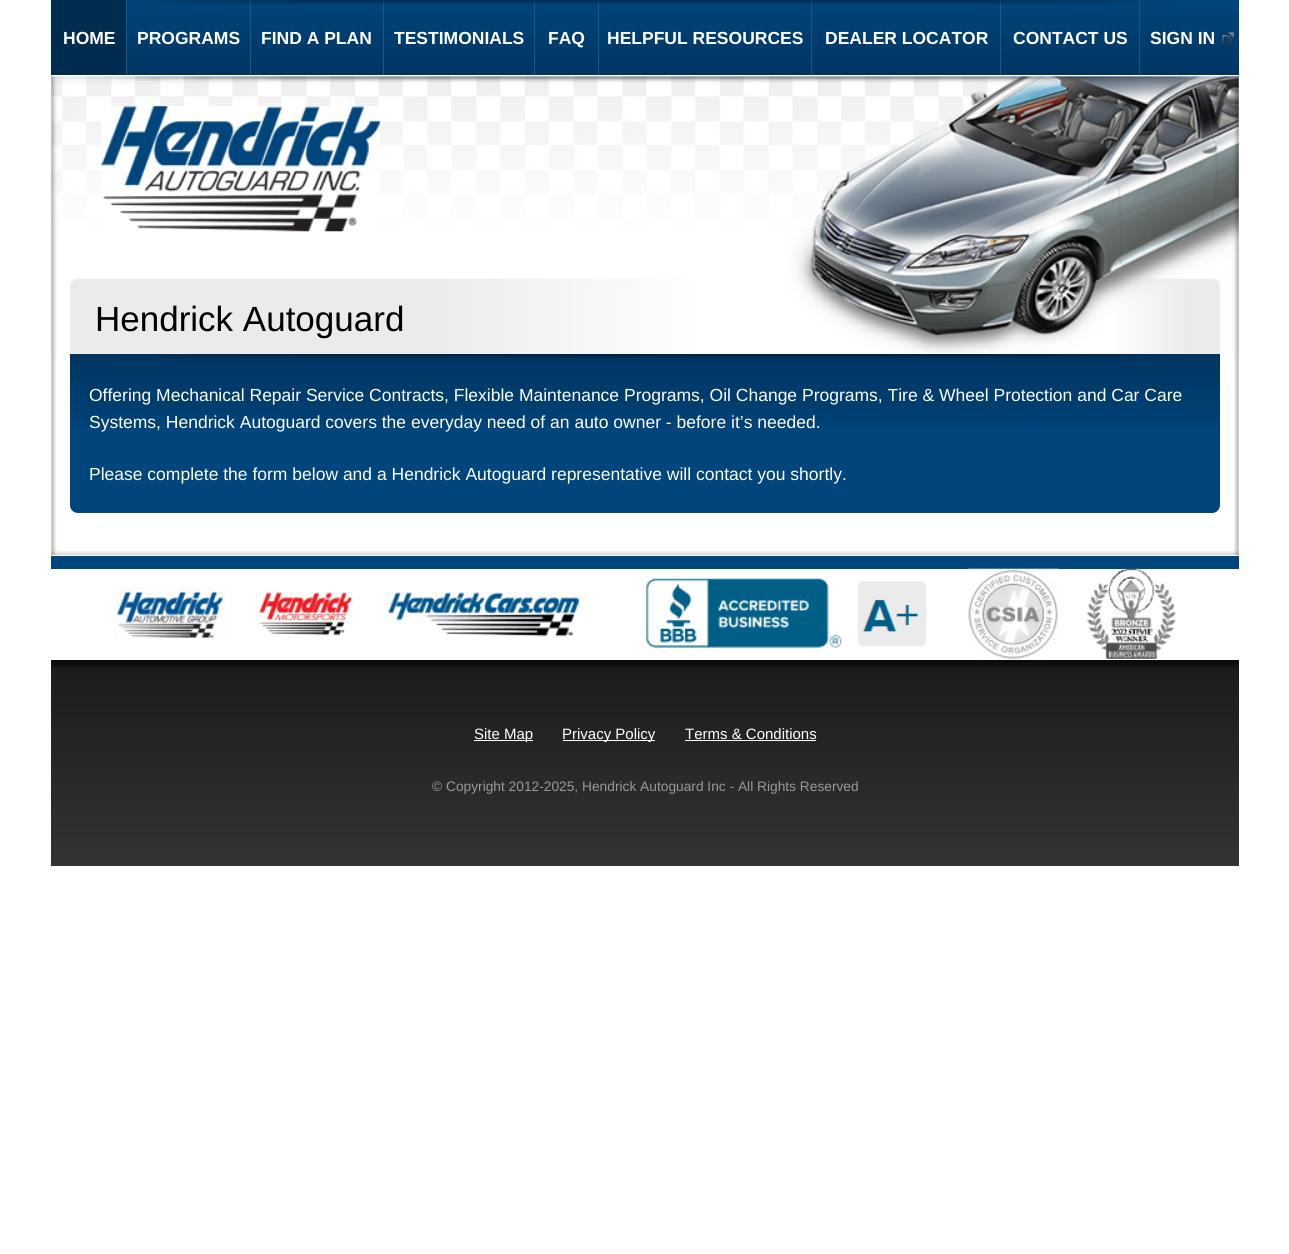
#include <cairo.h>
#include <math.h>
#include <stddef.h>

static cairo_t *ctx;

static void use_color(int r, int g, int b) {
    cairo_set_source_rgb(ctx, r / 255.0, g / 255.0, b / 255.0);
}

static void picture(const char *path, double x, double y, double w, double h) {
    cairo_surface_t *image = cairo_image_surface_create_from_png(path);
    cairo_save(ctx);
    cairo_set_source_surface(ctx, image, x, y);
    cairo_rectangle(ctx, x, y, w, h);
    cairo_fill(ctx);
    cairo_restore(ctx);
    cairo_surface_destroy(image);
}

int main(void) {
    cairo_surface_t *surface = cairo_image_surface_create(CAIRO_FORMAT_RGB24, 1289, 1254);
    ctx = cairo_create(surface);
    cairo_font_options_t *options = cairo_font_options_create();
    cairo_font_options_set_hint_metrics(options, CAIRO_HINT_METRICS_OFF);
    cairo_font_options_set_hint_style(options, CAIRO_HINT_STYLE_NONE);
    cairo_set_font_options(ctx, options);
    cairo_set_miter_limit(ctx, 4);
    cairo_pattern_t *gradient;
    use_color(255, 255, 255);
    cairo_paint(ctx);
    picture("img1.png", 51, 75, 1188, 792);
    gradient = cairo_pattern_create_linear(645, 0, 645, 75);
    cairo_pattern_add_color_stop_rgba(gradient, 0, 0, 0.271, 0.486, 1);
    cairo_pattern_add_color_stop_rgba(gradient, 1, 0, 0.208, 0.38, 1);
    cairo_set_source(ctx, gradient);
    cairo_pattern_destroy(gradient);
    cairo_rectangle(ctx, 127, 0, 1112, 75);
    cairo_fill(ctx);
    use_color(0, 44, 79);
    cairo_rectangle(ctx, 51, 0, 75, 75);
    cairo_fill(ctx);
    use_color(26, 88, 137);
    cairo_rectangle(ctx, 126, 0, 1, 75);
    cairo_fill(ctx);
    cairo_rectangle(ctx, 250, 0, 1, 75);
    cairo_fill(ctx);
    cairo_rectangle(ctx, 383, 0, 1, 75);
    cairo_fill(ctx);
    cairo_rectangle(ctx, 534, 0, 1, 75);
    cairo_fill(ctx);
    cairo_rectangle(ctx, 598, 0, 1, 75);
    cairo_fill(ctx);
    cairo_rectangle(ctx, 811, 0, 1, 75);
    cairo_fill(ctx);
    cairo_rectangle(ctx, 1000, 0, 1, 75);
    cairo_fill(ctx);
    cairo_rectangle(ctx, 1139, 0, 1, 75);
    cairo_fill(ctx);
    picture("img2.png", 118, 0, 1060, 5);
    cairo_select_font_face(ctx, "Liberation Sans", CAIRO_FONT_SLANT_NORMAL, CAIRO_FONT_WEIGHT_BOLD);
    cairo_set_font_size(ctx, 17.5);
    use_color(255, 255, 255);
    cairo_move_to(ctx, 63, 44);
    cairo_show_text(ctx, "HOME");
    cairo_move_to(ctx, 137, 44);
    cairo_show_text(ctx, "PROGRAMS");
    cairo_move_to(ctx, 261, 44);
    cairo_show_text(ctx, "FIND A PLAN");
    cairo_move_to(ctx, 394, 44);
    cairo_show_text(ctx, "TESTIMONIALS");
    cairo_move_to(ctx, 548, 44);
    cairo_show_text(ctx, "FAQ");
    cairo_move_to(ctx, 607, 44);
    cairo_show_text(ctx, "HELPFUL RESOURCES");
    cairo_move_to(ctx, 825, 44);
    cairo_show_text(ctx, "DEALER LOCATOR");
    cairo_move_to(ctx, 1013, 44);
    cairo_show_text(ctx, "CONTACT US");
    picture("img3.png", 1222, 32, 12, 12);
    cairo_move_to(ctx, 1150, 44);
    cairo_show_text(ctx, "SIGN IN");
    picture("img4.png", 51, 75, 1188, 279);
    picture("img5.png", 101, 106, 279, 126);
    cairo_select_font_face(ctx, "Liberation Sans", CAIRO_FONT_SLANT_NORMAL, CAIRO_FONT_WEIGHT_NORMAL);
    cairo_set_font_size(ctx, 35);
    use_color(0, 0, 0);
    cairo_move_to(ctx, 95, 331);
    cairo_show_text(ctx, "Hendrick Autoguard");
    use_color(0, 69, 124);
    cairo_new_path(ctx);
    cairo_move_to(ctx, 70, 354);
    cairo_line_to(ctx, 1220, 354);
    cairo_line_to(ctx, 1220, 505);
    cairo_curve_to(ctx, 1220, 509.5, 1216.5, 513, 1212, 513);
    cairo_line_to(ctx, 78, 513);
    cairo_curve_to(ctx, 73.5, 513, 70, 509.5, 70, 505);
    cairo_close_path(ctx);
    cairo_fill(ctx);
    picture("img6.png", 70, 354, 1150, 73);
    picture("img7.png", 116, 354, 1058, 5);
    cairo_set_font_size(ctx, 17.5);
    use_color(255, 255, 255);
    cairo_move_to(ctx, 89, 401);
    cairo_show_text(ctx, "Offering Mechanical Repair Service Contracts, Flexible Maintenance Programs, Oil Change Programs, Tire & Wheel Protection and Car Care");
    cairo_move_to(ctx, 89, 428);
    cairo_show_text(ctx, "Systems, Hendrick Autoguard covers the everyday need of an auto owner - before it’s needed.");
    cairo_move_to(ctx, 89, 480);
    cairo_show_text(ctx, "Please complete the form below and a Hendrick Autoguard representative will contact you shortly.");
    cairo_rectangle(ctx, 51, 569, 1188, 91);
    cairo_fill(ctx);
    use_color(0, 69, 124);
    cairo_rectangle(ctx, 51, 556, 1188, 13);
    cairo_fill(ctx);
    picture("img8.png", 51, 551, 1188, 4);
    use_color(255, 255, 255);
    cairo_rectangle(ctx, 51, 555, 1188, 1);
    cairo_fill(ctx);
    picture("img9.png", 114, 586, 112, 53);
    picture("img10.png", 258, 592, 95, 44);
    picture("img11.png", 388, 592, 192, 45);
    picture("img12.png", 646, 578, 281, 70);
    picture("img13.png", 967, 568, 92, 91);
    picture("img14.png", 1087, 568, 89, 91);
    gradient = cairo_pattern_create_linear(645, 660, 645, 866);
    cairo_pattern_add_color_stop_rgba(gradient, 0, 0.106, 0.106, 0.106, 1);
    cairo_pattern_add_color_stop_rgba(gradient, 1, 0.2, 0.2, 0.2, 1);
    cairo_set_source(ctx, gradient);
    cairo_pattern_destroy(gradient);
    cairo_rectangle(ctx, 51, 660, 1188, 206);
    cairo_fill(ctx);
    picture("img15.png", 51, 660, 1188, 8);
    use_color(255, 255, 255);
    cairo_rectangle(ctx, 474, 740, 59, 1);
    cairo_fill(ctx);
    cairo_set_font_size(ctx, 15);
    cairo_move_to(ctx, 474, 739);
    cairo_show_text(ctx, "Site Map");
    cairo_rectangle(ctx, 563, 740, 92, 1);
    cairo_fill(ctx);
    cairo_move_to(ctx, 562, 739);
    cairo_show_text(ctx, "Privacy Policy");
    cairo_move_to(ctx, 685, 739);
    cairo_show_text(ctx, "Terms & Conditions");
    cairo_rectangle(ctx, 685, 740, 131, 1);
    cairo_fill(ctx);
    cairo_set_font_size(ctx, 13.75);
    use_color(153, 153, 153);
    cairo_move_to(ctx, 432, 791);
    cairo_show_text(ctx, "© Copyright 2012-2025, Hendrick Autoguard Inc - All Rights Reserved");
    cairo_surface_write_to_png(surface, "result.png");
    cairo_font_options_destroy(options);
    cairo_destroy(ctx);
    cairo_surface_destroy(surface);
    return 0;
}
